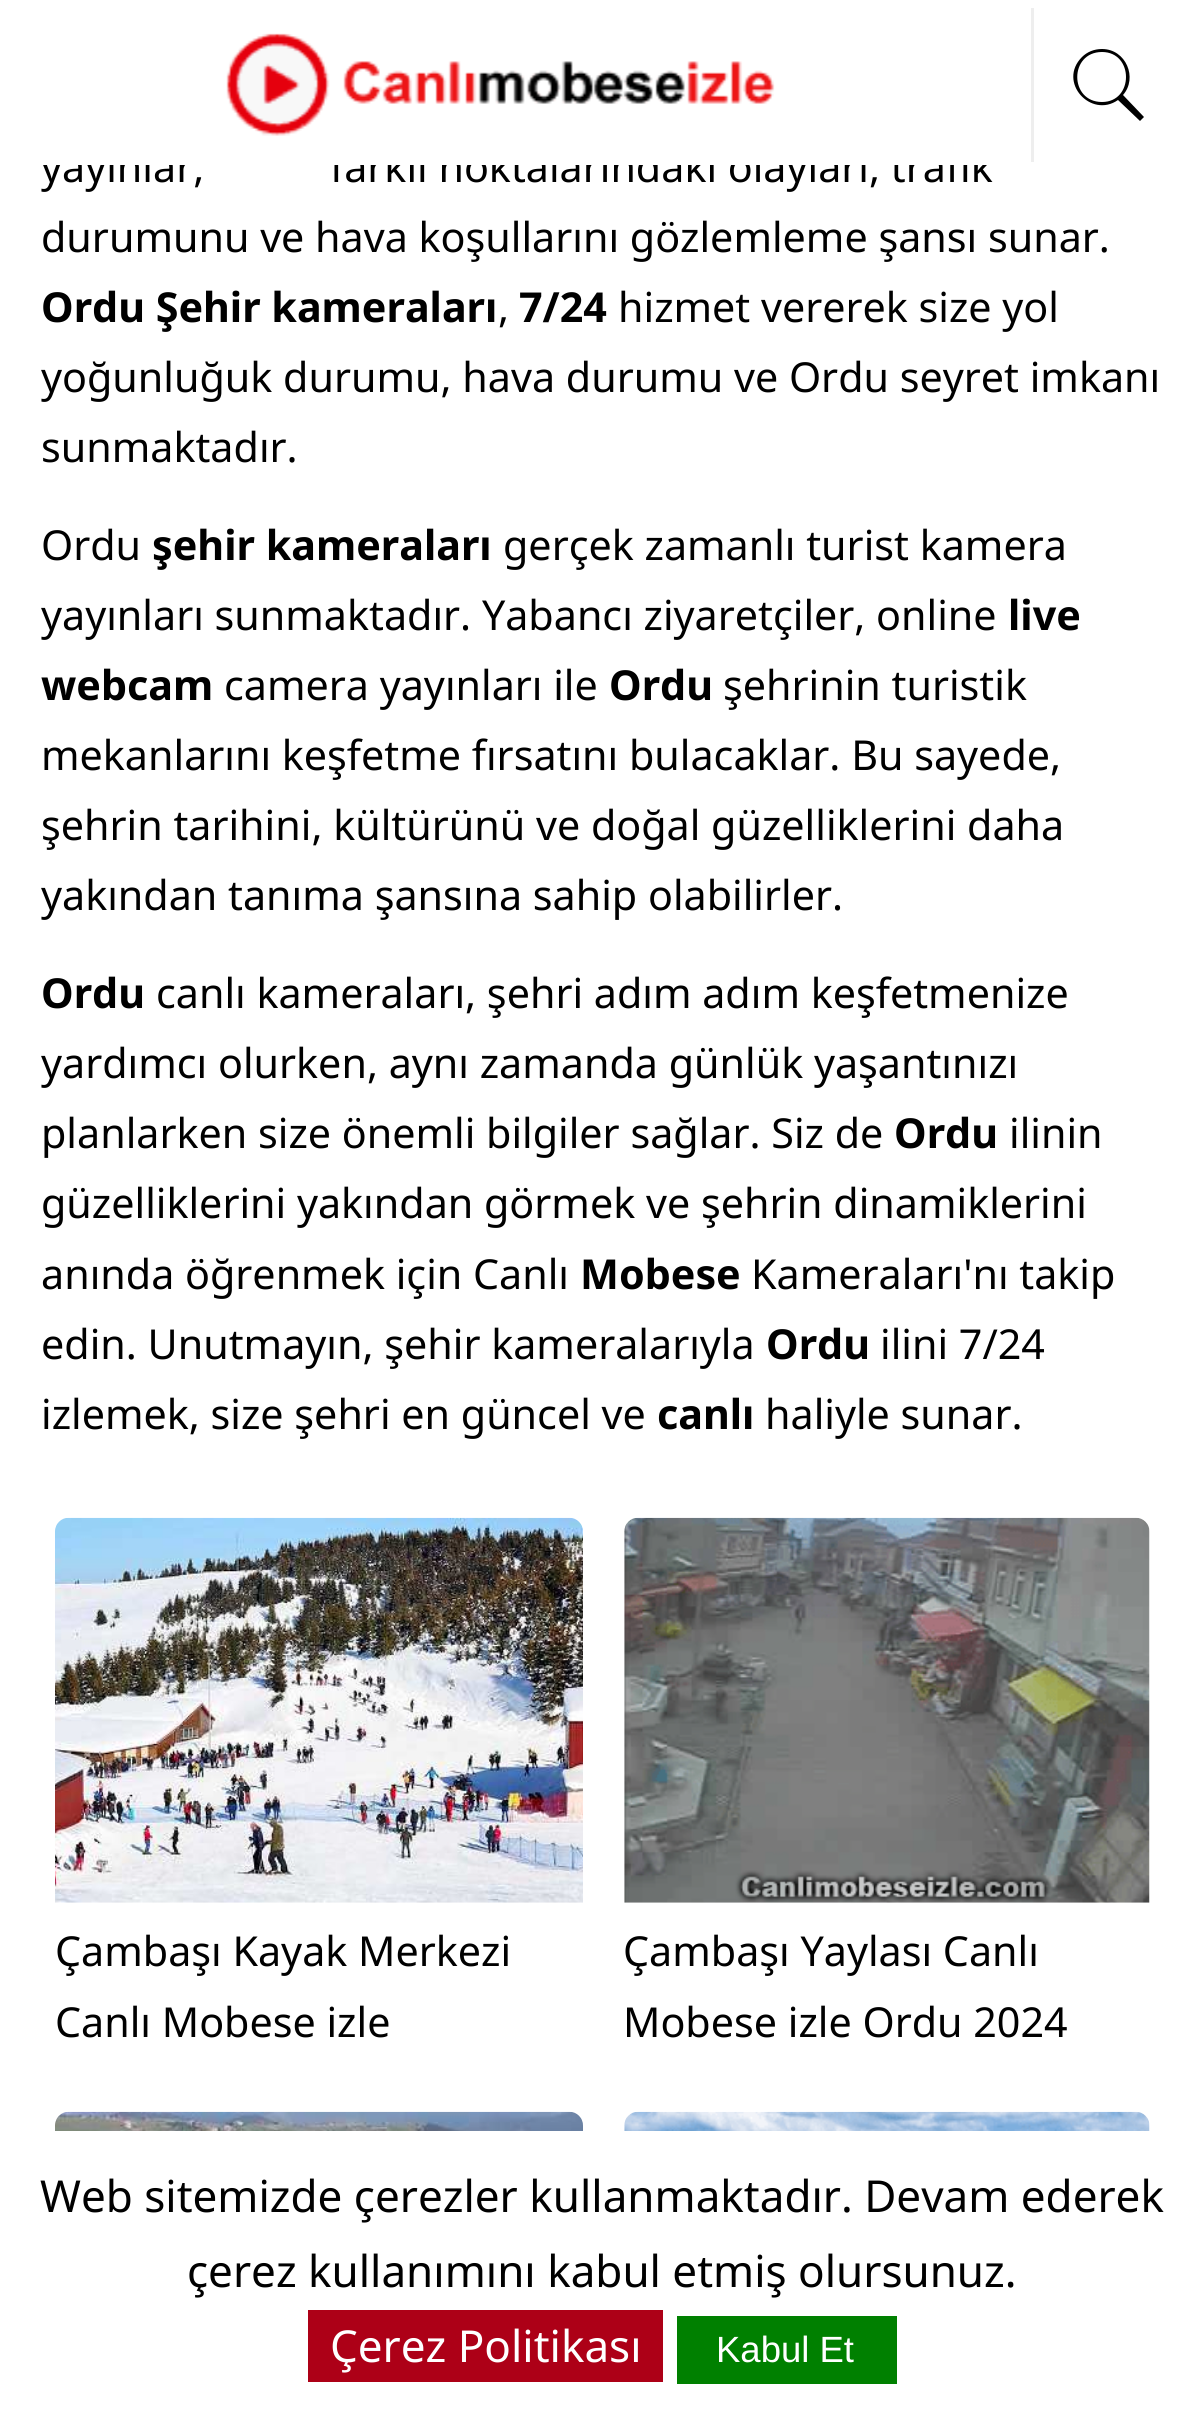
#include <cairo.h>
#include <math.h>
#include <stddef.h>

static cairo_t *ctx;

static void use_color(int r, int g, int b) {
    cairo_set_source_rgb(ctx, r / 255.0, g / 255.0, b / 255.0);
}

static void picture(const char *path, double x, double y, double w, double h) {
    cairo_surface_t *image = cairo_image_surface_create_from_png(path);
    cairo_save(ctx);
    cairo_set_source_surface(ctx, image, x, y);
    cairo_rectangle(ctx, x, y, w, h);
    cairo_fill(ctx);
    cairo_restore(ctx);
    cairo_surface_destroy(image);
}

int main(void) {
    cairo_surface_t *surface = cairo_image_surface_create(CAIRO_FORMAT_RGB24, 1202, 2410);
    ctx = cairo_create(surface);
    cairo_font_options_t *options = cairo_font_options_create();
    cairo_font_options_set_hint_metrics(options, CAIRO_HINT_METRICS_OFF);
    cairo_font_options_set_hint_style(options, CAIRO_HINT_STYLE_NONE);
    cairo_set_font_options(ctx, options);
    cairo_set_miter_limit(ctx, 4);
    use_color(255, 255, 255);
    cairo_paint(ctx);
    cairo_select_font_face(ctx, "Noto Sans", CAIRO_FONT_SLANT_NORMAL, CAIRO_FONT_WEIGHT_NORMAL);
    cairo_set_font_size(ctx, 41.25);
    use_color(0, 0, 0);
    cairo_move_to(ctx, 41, 182);
    cairo_show_text(ctx, "yayınlar,");
    cairo_move_to(ctx, 330, 182);
    cairo_show_text(ctx, "farklı noktalarındaki olayları, trafik");
    use_color(255, 255, 255);
    cairo_rectangle(ctx, 41, 150, 951, 15);
    cairo_fill(ctx);
    picture("img1.png", 226, 33, 549, 103);
    use_color(238, 238, 238);
    cairo_rectangle(ctx, 1031, 8, 3, 154);
    cairo_fill(ctx);
    use_color(0, 0, 0);
    cairo_new_path(ctx);
    cairo_move_to(ctx, 1102, 49);
    cairo_curve_to(ctx, 1094, 49, 1087, 52, 1082, 57);
    cairo_curve_to(ctx, 1057, 82, 1091, 119, 1118, 100);
    cairo_line_to(ctx, 1140, 121);
    cairo_line_to(ctx, 1144, 117);
    cairo_line_to(ctx, 1123, 95);
    cairo_curve_to(ctx, 1138, 78, 1126, 49, 1102, 49);
    cairo_close_path(ctx);
    cairo_move_to(ctx, 1102, 52);
    cairo_curve_to(ctx, 1134, 52, 1134, 102, 1102, 102);
    cairo_curve_to(ctx, 1069, 102, 1069, 52, 1102, 52);
    cairo_close_path(ctx);
    cairo_fill(ctx);
    cairo_move_to(ctx, 41, 252);
    cairo_show_text(ctx, "durumunu ve hava koşullarını gözlemleme şansı sunar.");
    cairo_select_font_face(ctx, "Noto Sans", CAIRO_FONT_SLANT_NORMAL, CAIRO_FONT_WEIGHT_BOLD);
    cairo_move_to(ctx, 41, 322);
    cairo_show_text(ctx, "Ordu Şehir kameraları");
    cairo_select_font_face(ctx, "Noto Sans", CAIRO_FONT_SLANT_NORMAL, CAIRO_FONT_WEIGHT_NORMAL);
    cairo_move_to(ctx, 498, 322);
    cairo_show_text(ctx, ",");
    cairo_select_font_face(ctx, "Noto Sans", CAIRO_FONT_SLANT_NORMAL, CAIRO_FONT_WEIGHT_BOLD);
    cairo_move_to(ctx, 519, 322);
    cairo_show_text(ctx, "7/24");
    cairo_select_font_face(ctx, "Noto Sans", CAIRO_FONT_SLANT_NORMAL, CAIRO_FONT_WEIGHT_NORMAL);
    cairo_move_to(ctx, 618, 322);
    cairo_show_text(ctx, "hizmet vererek size yol");
    cairo_move_to(ctx, 41, 392);
    cairo_show_text(ctx, "yoğunluğuk durumu, hava durumu ve Ordu seyret imkanı");
    cairo_move_to(ctx, 41, 462);
    cairo_show_text(ctx, "sunmaktadır.");
    cairo_move_to(ctx, 41, 560);
    cairo_show_text(ctx, "Ordu");
    cairo_select_font_face(ctx, "Noto Sans", CAIRO_FONT_SLANT_NORMAL, CAIRO_FONT_WEIGHT_BOLD);
    cairo_move_to(ctx, 152, 560);
    cairo_show_text(ctx, "şehir kameraları");
    cairo_select_font_face(ctx, "Noto Sans", CAIRO_FONT_SLANT_NORMAL, CAIRO_FONT_WEIGHT_NORMAL);
    cairo_move_to(ctx, 503, 560);
    cairo_show_text(ctx, "gerçek zamanlı turist kamera");
    cairo_move_to(ctx, 41, 630);
    cairo_show_text(ctx, "yayınları sunmaktadır. Yabancı ziyaretçiler, online");
    cairo_select_font_face(ctx, "Noto Sans", CAIRO_FONT_SLANT_NORMAL, CAIRO_FONT_WEIGHT_BOLD);
    cairo_move_to(ctx, 1008, 630);
    cairo_show_text(ctx, "live");
    cairo_move_to(ctx, 41, 700);
    cairo_show_text(ctx, "webcam");
    cairo_select_font_face(ctx, "Noto Sans", CAIRO_FONT_SLANT_NORMAL, CAIRO_FONT_WEIGHT_NORMAL);
    cairo_move_to(ctx, 224, 700);
    cairo_show_text(ctx, "camera yayınları ile");
    cairo_select_font_face(ctx, "Noto Sans", CAIRO_FONT_SLANT_NORMAL, CAIRO_FONT_WEIGHT_BOLD);
    cairo_move_to(ctx, 609, 700);
    cairo_show_text(ctx, "Ordu");
    cairo_select_font_face(ctx, "Noto Sans", CAIRO_FONT_SLANT_NORMAL, CAIRO_FONT_WEIGHT_NORMAL);
    cairo_move_to(ctx, 723, 700);
    cairo_show_text(ctx, "şehrinin turistik");
    cairo_move_to(ctx, 41, 770);
    cairo_show_text(ctx, "mekanlarını keşfetme fırsatını bulacaklar. Bu sayede,");
    cairo_move_to(ctx, 41, 840);
    cairo_show_text(ctx, "şehrin tarihini, kültürünü ve doğal güzelliklerini daha");
    cairo_move_to(ctx, 41, 910);
    cairo_show_text(ctx, "yakından tanıma şansına sahip olabilirler.");
    cairo_select_font_face(ctx, "Noto Sans", CAIRO_FONT_SLANT_NORMAL, CAIRO_FONT_WEIGHT_BOLD);
    cairo_move_to(ctx, 41, 1008);
    cairo_show_text(ctx, "Ordu");
    cairo_select_font_face(ctx, "Noto Sans", CAIRO_FONT_SLANT_NORMAL, CAIRO_FONT_WEIGHT_NORMAL);
    cairo_move_to(ctx, 156, 1008);
    cairo_show_text(ctx, "canlı kameraları, şehri adım adım keşfetmenize");
    cairo_move_to(ctx, 41, 1078);
    cairo_show_text(ctx, "yardımcı olurken, aynı zamanda günlük yaşantınızı");
    cairo_move_to(ctx, 41, 1148);
    cairo_show_text(ctx, "planlarken size önemli bilgiler sağlar. Siz de");
    cairo_select_font_face(ctx, "Noto Sans", CAIRO_FONT_SLANT_NORMAL, CAIRO_FONT_WEIGHT_BOLD);
    cairo_move_to(ctx, 894, 1148);
    cairo_show_text(ctx, "Ordu");
    cairo_select_font_face(ctx, "Noto Sans", CAIRO_FONT_SLANT_NORMAL, CAIRO_FONT_WEIGHT_NORMAL);
    cairo_move_to(ctx, 1009, 1148);
    cairo_show_text(ctx, "ilinin");
    cairo_move_to(ctx, 41, 1218);
    cairo_show_text(ctx, "güzelliklerini yakından görmek ve şehrin dinamiklerini");
    cairo_move_to(ctx, 41, 1289);
    cairo_show_text(ctx, "anında öğrenmek için Canlı");
    cairo_select_font_face(ctx, "Noto Sans", CAIRO_FONT_SLANT_NORMAL, CAIRO_FONT_WEIGHT_BOLD);
    cairo_move_to(ctx, 580, 1289);
    cairo_show_text(ctx, "Mobese");
    cairo_select_font_face(ctx, "Noto Sans", CAIRO_FONT_SLANT_NORMAL, CAIRO_FONT_WEIGHT_NORMAL);
    cairo_move_to(ctx, 751, 1289);
    cairo_show_text(ctx, "Kameraları'nı takip");
    cairo_move_to(ctx, 41, 1359);
    cairo_show_text(ctx, "edin. Unutmayın, şehir kameralarıyla");
    cairo_select_font_face(ctx, "Noto Sans", CAIRO_FONT_SLANT_NORMAL, CAIRO_FONT_WEIGHT_BOLD);
    cairo_move_to(ctx, 766, 1359);
    cairo_show_text(ctx, "Ordu");
    cairo_select_font_face(ctx, "Noto Sans", CAIRO_FONT_SLANT_NORMAL, CAIRO_FONT_WEIGHT_NORMAL);
    cairo_move_to(ctx, 880, 1359);
    cairo_show_text(ctx, "ilini 7/24");
    cairo_move_to(ctx, 41, 1429);
    cairo_show_text(ctx, "izlemek, size şehri en güncel ve");
    cairo_select_font_face(ctx, "Noto Sans", CAIRO_FONT_SLANT_NORMAL, CAIRO_FONT_WEIGHT_BOLD);
    cairo_move_to(ctx, 657, 1429);
    cairo_show_text(ctx, "canlı");
    cairo_select_font_face(ctx, "Noto Sans", CAIRO_FONT_SLANT_NORMAL, CAIRO_FONT_WEIGHT_NORMAL);
    cairo_move_to(ctx, 765, 1429);
    cairo_show_text(ctx, "haliyle sunar.");
    picture("img2.png", 55, 1517, 528, 386);
    cairo_move_to(ctx, 55, 1966);
    cairo_show_text(ctx, "Çambaşı Kayak Merkezi");
    cairo_move_to(ctx, 55, 2037);
    cairo_show_text(ctx, "Canlı Mobese izle");
    picture("img3.png", 624, 1517, 526, 386);
    cairo_move_to(ctx, 623, 1966);
    cairo_show_text(ctx, "Çambaşı Yaylası Canlı");
    cairo_move_to(ctx, 623, 2037);
    cairo_show_text(ctx, "Mobese izle Ordu 2024");
    picture("img4.png", 55, 2111, 528, 20);
    picture("img5.png", 624, 2111, 526, 20);
    cairo_set_font_size(ctx, 44);
    cairo_move_to(ctx, 40, 2212);
    cairo_show_text(ctx, "Web sitemizde çerezler kullanmaktadır. Devam ederek");
    cairo_move_to(ctx, 187, 2287);
    cairo_show_text(ctx, "çerez kullanımını kabul etmiş olursunuz.");
    use_color(173, 0, 23);
    cairo_rectangle(ctx, 308, 2310, 355, 72);
    cairo_fill(ctx);
    use_color(255, 255, 255);
    cairo_move_to(ctx, 330, 2362);
    cairo_show_text(ctx, "Çerez Politikası");
    use_color(0, 128, 0);
    cairo_rectangle(ctx, 677, 2316, 220, 68);
    cairo_fill(ctx);
    cairo_select_font_face(ctx, "Liberation Sans", CAIRO_FONT_SLANT_NORMAL, CAIRO_FONT_WEIGHT_NORMAL);
    cairo_set_font_size(ctx, 36.5);
    use_color(255, 255, 255);
    cairo_move_to(ctx, 716, 2362);
    cairo_show_text(ctx, "Kabul Et");
    cairo_surface_write_to_png(surface, "result.png");
    cairo_font_options_destroy(options);
    cairo_destroy(ctx);
    cairo_surface_destroy(surface);
    return 0;
}
